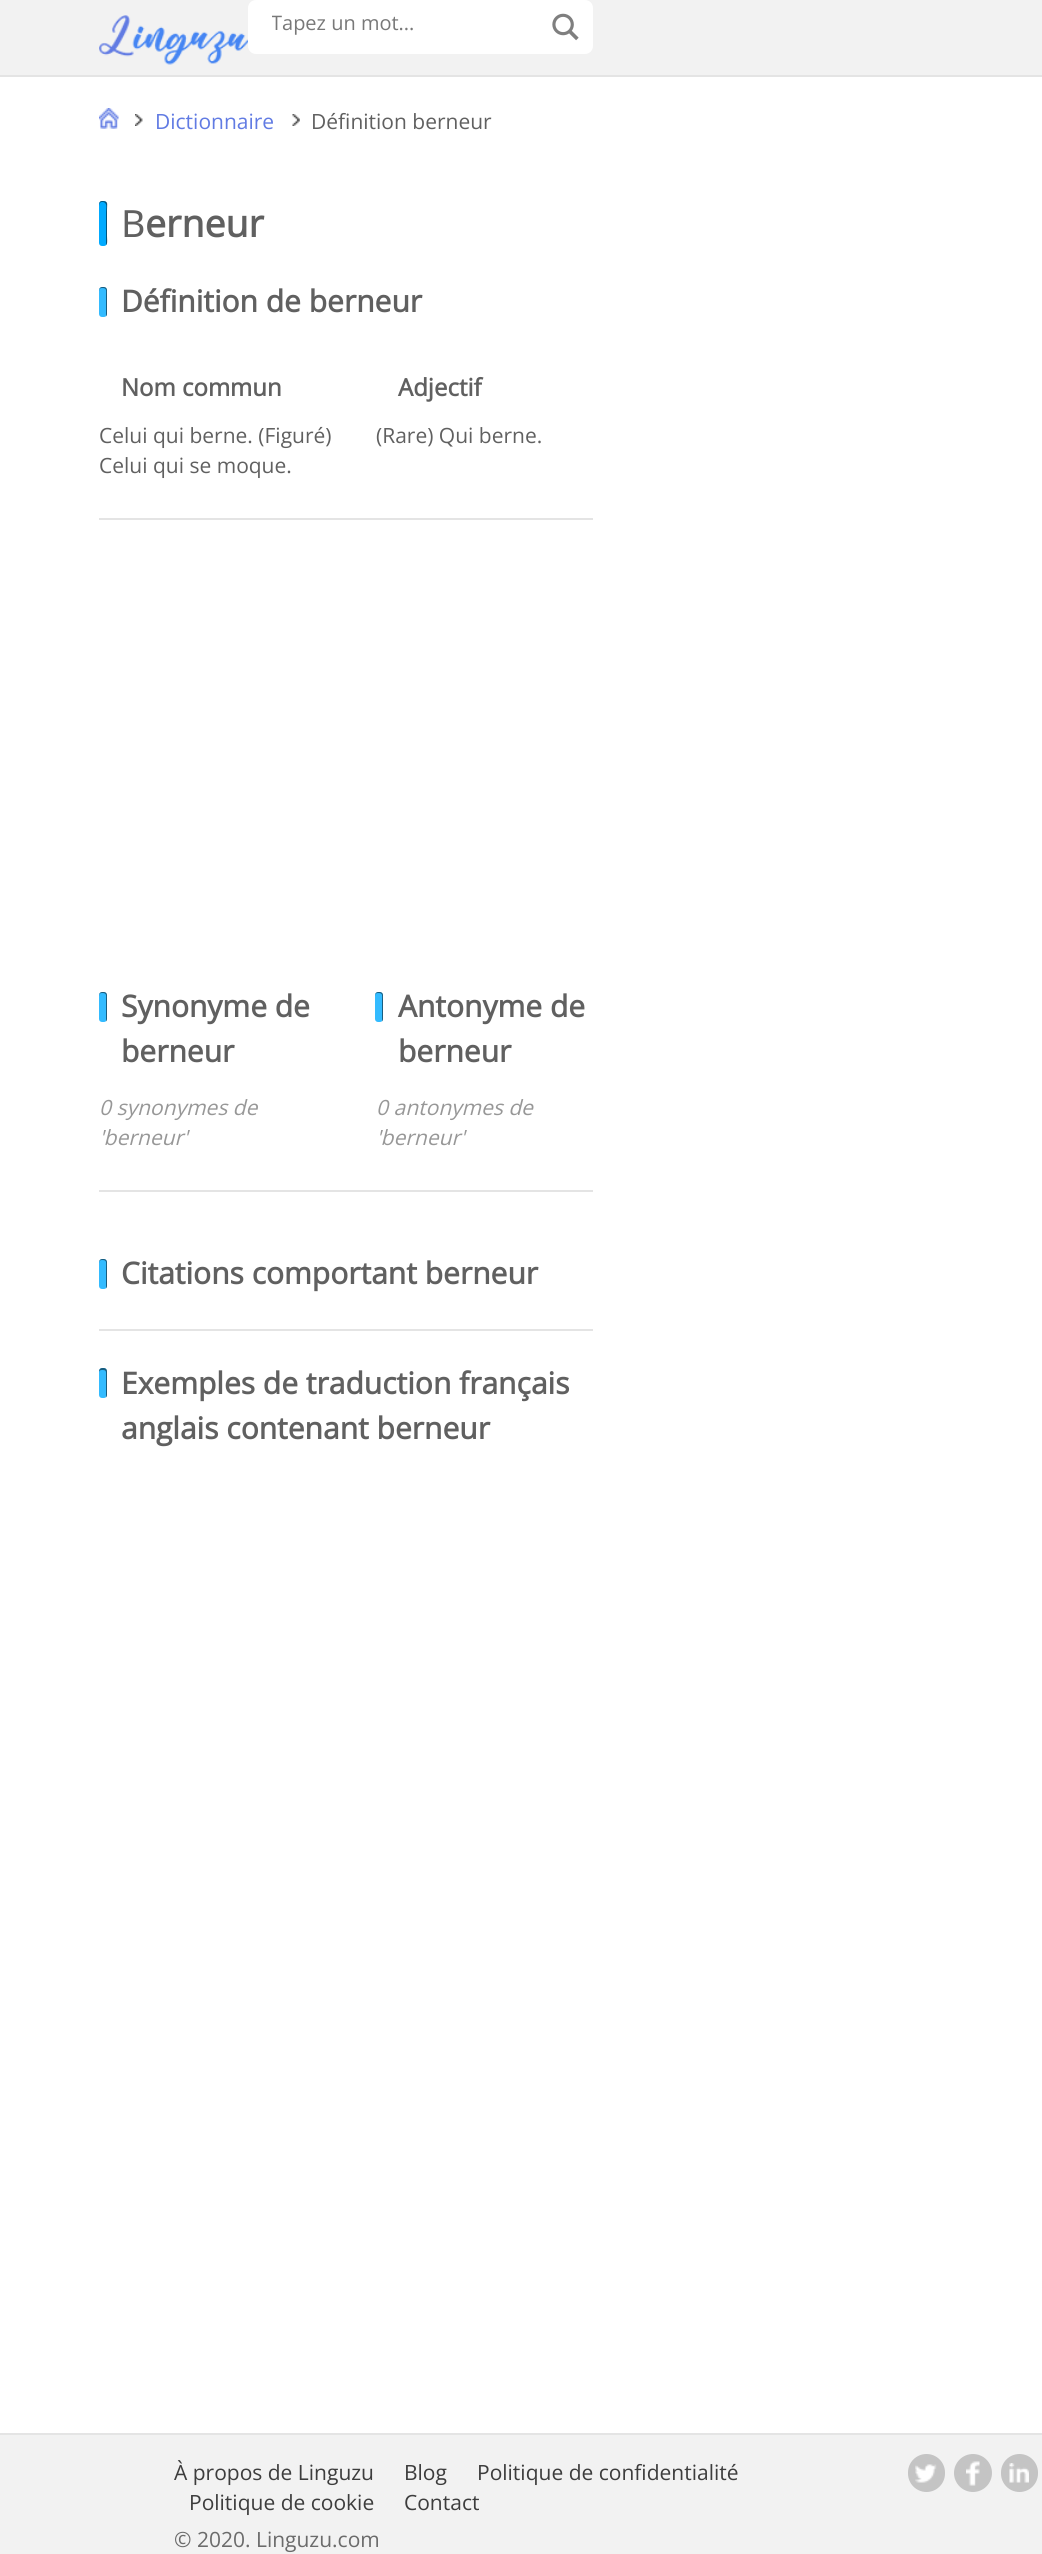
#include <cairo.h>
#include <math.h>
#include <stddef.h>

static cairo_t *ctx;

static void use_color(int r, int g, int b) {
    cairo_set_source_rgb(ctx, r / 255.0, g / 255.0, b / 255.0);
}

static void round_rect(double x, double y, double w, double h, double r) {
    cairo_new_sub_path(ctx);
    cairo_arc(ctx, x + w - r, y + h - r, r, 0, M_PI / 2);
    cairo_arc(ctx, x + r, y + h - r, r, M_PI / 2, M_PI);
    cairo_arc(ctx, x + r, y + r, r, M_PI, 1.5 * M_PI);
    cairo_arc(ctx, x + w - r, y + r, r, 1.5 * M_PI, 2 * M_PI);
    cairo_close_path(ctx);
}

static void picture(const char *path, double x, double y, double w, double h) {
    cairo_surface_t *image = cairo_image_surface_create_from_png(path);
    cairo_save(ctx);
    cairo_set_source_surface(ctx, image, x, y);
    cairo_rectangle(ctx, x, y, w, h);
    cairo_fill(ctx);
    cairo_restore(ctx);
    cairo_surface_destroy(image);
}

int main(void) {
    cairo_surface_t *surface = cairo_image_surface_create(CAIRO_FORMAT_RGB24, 1042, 2554);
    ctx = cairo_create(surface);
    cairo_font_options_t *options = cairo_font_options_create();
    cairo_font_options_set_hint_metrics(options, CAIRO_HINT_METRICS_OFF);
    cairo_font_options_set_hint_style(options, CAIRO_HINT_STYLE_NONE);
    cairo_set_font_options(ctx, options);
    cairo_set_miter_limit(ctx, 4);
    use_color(255, 255, 255);
    cairo_paint(ctx);
    use_color(242, 242, 242);
    cairo_rectangle(ctx, 0, 0, 1042, 75);
    cairo_fill(ctx);
    use_color(228, 228, 228);
    cairo_rectangle(ctx, 0, 75, 1042, 2);
    cairo_fill(ctx);
    picture("img1.png", 99, 15, 149, 50);
    use_color(255, 255, 255);
    round_rect(249, 1, 343, 52, 7);
    cairo_fill_preserve(ctx);
    cairo_stroke(ctx);
    cairo_save(ctx);
    cairo_rectangle(ctx, 272, 9, 261, 27);
    cairo_clip(ctx);
    cairo_select_font_face(ctx, "Open Sans", CAIRO_FONT_SLANT_NORMAL, CAIRO_FONT_WEIGHT_NORMAL);
    cairo_set_font_size(ctx, 20);
    use_color(120, 120, 120);
    cairo_move_to(ctx, 271, 30);
    cairo_show_text(ctx, "Tapez un mot...");
    cairo_restore(ctx);
    picture("img2.png", 552, 13, 27, 28);
    picture("img3.png", 99, 108, 20, 21);
    picture("img4.png", 135, 114, 8, 12);
    cairo_select_font_face(ctx, "Open Sans", CAIRO_FONT_SLANT_NORMAL, CAIRO_FONT_WEIGHT_NORMAL);
    cairo_set_font_size(ctx, 21);
    use_color(97, 123, 227);
    cairo_move_to(ctx, 155, 129);
    cairo_show_text(ctx, "Dictionnaire");
    picture("img5.png", 292, 114, 8, 12);
    use_color(96, 96, 96);
    cairo_move_to(ctx, 311, 129);
    cairo_show_text(ctx, "Définition berneur");
    use_color(0, 170, 255);
    round_rect(99, 201, 8, 45, 3);
    cairo_fill(ctx);
    cairo_set_source_rgba(ctx, 0, 0, 0, 0.5);
    cairo_new_path(ctx);
    cairo_move_to(ctx, 102, 202);
    cairo_curve_to(ctx, 108, 202, 106, 208, 106, 212);
    cairo_line_to(ctx, 106, 245);
    cairo_curve_to(ctx, 108, 244, 107, 238, 107, 236);
    cairo_line_to(ctx, 107, 210);
    cairo_curve_to(ctx, 107, 204, 109, 201, 102, 201);
    cairo_curve_to(ctx, 99, 201, 99, 204, 99, 206);
    cairo_curve_to(ctx, 99, 204, 100, 202, 102, 202);
    cairo_close_path(ctx);
    cairo_fill(ctx);
    cairo_select_font_face(ctx, "Noto Sans", CAIRO_FONT_SLANT_NORMAL, CAIRO_FONT_WEIGHT_NORMAL);
    cairo_set_font_size(ctx, 37.5);
    use_color(96, 96, 96);
    cairo_move_to(ctx, 121, 237);
    cairo_show_text(ctx, "B");
    cairo_select_font_face(ctx, "Open Sans", CAIRO_FONT_SLANT_NORMAL, CAIRO_FONT_WEIGHT_BOLD);
    cairo_move_to(ctx, 145, 237);
    cairo_show_text(ctx, "erneur");
    use_color(228, 228, 228);
    cairo_rectangle(ctx, 99, 518, 494, 2);
    cairo_fill(ctx);
    use_color(51, 187, 255);
    round_rect(99, 287, 8, 30, 3);
    cairo_fill(ctx);
    cairo_set_source_rgba(ctx, 0, 0, 0, 0.5);
    cairo_new_path(ctx);
    cairo_move_to(ctx, 102, 288);
    cairo_curve_to(ctx, 107, 288, 106, 290, 106, 295);
    cairo_line_to(ctx, 106, 316.5);
    cairo_curve_to(ctx, 106.5, 316, 107, 315, 107, 314);
    cairo_line_to(ctx, 107, 290);
    cairo_curve_to(ctx, 107, 288.5, 105.5, 287, 104, 287);
    cairo_line_to(ctx, 102, 287);
    cairo_curve_to(ctx, 100.5, 287, 99, 288.5, 99, 290);
    cairo_line_to(ctx, 99, 291);
    cairo_curve_to(ctx, 99, 289, 100, 288, 102, 288);
    cairo_close_path(ctx);
    cairo_fill(ctx);
    cairo_set_font_size(ctx, 30);
    use_color(96, 96, 96);
    cairo_move_to(ctx, 121, 312);
    cairo_show_text(ctx, "Définition de berneur");
    cairo_set_font_size(ctx, 24);
    cairo_move_to(ctx, 121, 396);
    cairo_show_text(ctx, "Nom commun");
    cairo_select_font_face(ctx, "Open Sans", CAIRO_FONT_SLANT_NORMAL, CAIRO_FONT_WEIGHT_NORMAL);
    cairo_set_font_size(ctx, 21);
    cairo_move_to(ctx, 99, 443);
    cairo_show_text(ctx, "Celui qui berne. (Figuré)");
    cairo_move_to(ctx, 99, 473);
    cairo_show_text(ctx, "Celui qui se moque.");
    cairo_select_font_face(ctx, "Open Sans", CAIRO_FONT_SLANT_NORMAL, CAIRO_FONT_WEIGHT_BOLD);
    cairo_set_font_size(ctx, 24);
    cairo_move_to(ctx, 398, 396);
    cairo_show_text(ctx, "Adjectif");
    cairo_select_font_face(ctx, "Open Sans", CAIRO_FONT_SLANT_NORMAL, CAIRO_FONT_WEIGHT_NORMAL);
    cairo_set_font_size(ctx, 21);
    cairo_move_to(ctx, 376, 443);
    cairo_show_text(ctx, "(Rare) Qui berne.");
    use_color(228, 228, 228);
    cairo_rectangle(ctx, 99, 1190, 494, 2);
    cairo_fill(ctx);
    use_color(51, 187, 255);
    round_rect(99, 992, 8, 30, 3);
    cairo_fill(ctx);
    cairo_set_source_rgba(ctx, 0, 0, 0, 0.5);
    cairo_new_path(ctx);
    cairo_move_to(ctx, 102, 993);
    cairo_curve_to(ctx, 107, 993, 106, 995, 106, 1000);
    cairo_line_to(ctx, 106, 1021.5);
    cairo_curve_to(ctx, 106.5, 1021, 107, 1020, 107, 1019);
    cairo_line_to(ctx, 107, 995);
    cairo_curve_to(ctx, 107, 993.5, 105.5, 992, 104, 992);
    cairo_line_to(ctx, 102, 992);
    cairo_curve_to(ctx, 100.5, 992, 99, 993.5, 99, 995);
    cairo_line_to(ctx, 99, 996);
    cairo_curve_to(ctx, 99, 994, 100, 993, 102, 993);
    cairo_close_path(ctx);
    cairo_fill(ctx);
    cairo_select_font_face(ctx, "Open Sans", CAIRO_FONT_SLANT_NORMAL, CAIRO_FONT_WEIGHT_BOLD);
    cairo_set_font_size(ctx, 30);
    use_color(96, 96, 96);
    cairo_move_to(ctx, 121, 1017);
    cairo_show_text(ctx, "Synonyme de");
    cairo_move_to(ctx, 121, 1062);
    cairo_show_text(ctx, "berneur");
    cairo_select_font_face(ctx, "Open Sans", CAIRO_FONT_SLANT_ITALIC, CAIRO_FONT_WEIGHT_NORMAL);
    cairo_set_font_size(ctx, 21);
    use_color(151, 151, 151);
    cairo_move_to(ctx, 99, 1115);
    cairo_show_text(ctx, "0 synonymes de");
    cairo_move_to(ctx, 99, 1145);
    cairo_show_text(ctx, "'berneur'");
    use_color(51, 187, 255);
    round_rect(375, 992, 8, 30, 3);
    cairo_fill(ctx);
    cairo_set_source_rgba(ctx, 0, 0, 0, 0.5);
    cairo_new_path(ctx);
    cairo_move_to(ctx, 378, 993);
    cairo_curve_to(ctx, 383, 993, 382, 995, 382, 1000);
    cairo_line_to(ctx, 382, 1021.5);
    cairo_curve_to(ctx, 382.5, 1021, 383, 1020, 383, 1019);
    cairo_line_to(ctx, 383, 995);
    cairo_curve_to(ctx, 383, 993.5, 381.5, 992, 380, 992);
    cairo_line_to(ctx, 378, 992);
    cairo_curve_to(ctx, 376.5, 992, 375, 993.5, 375, 995);
    cairo_line_to(ctx, 375, 996);
    cairo_curve_to(ctx, 375, 994, 376, 993, 378, 993);
    cairo_close_path(ctx);
    cairo_fill(ctx);
    cairo_select_font_face(ctx, "Open Sans", CAIRO_FONT_SLANT_NORMAL, CAIRO_FONT_WEIGHT_BOLD);
    cairo_set_font_size(ctx, 30);
    use_color(96, 96, 96);
    cairo_move_to(ctx, 398, 1017);
    cairo_show_text(ctx, "Antonyme de");
    cairo_move_to(ctx, 398, 1062);
    cairo_show_text(ctx, "berneur");
    cairo_select_font_face(ctx, "Open Sans", CAIRO_FONT_SLANT_ITALIC, CAIRO_FONT_WEIGHT_NORMAL);
    cairo_set_font_size(ctx, 21);
    use_color(151, 151, 151);
    cairo_move_to(ctx, 376, 1115);
    cairo_show_text(ctx, "0 antonymes de");
    cairo_move_to(ctx, 376, 1145);
    cairo_show_text(ctx, "'berneur'");
    use_color(228, 228, 228);
    cairo_rectangle(ctx, 99, 1329, 494, 2);
    cairo_fill(ctx);
    use_color(51, 187, 255);
    round_rect(99, 1259, 8, 30, 3);
    cairo_fill(ctx);
    cairo_set_source_rgba(ctx, 0, 0, 0, 0.5);
    cairo_new_path(ctx);
    cairo_move_to(ctx, 102, 1260);
    cairo_curve_to(ctx, 107, 1260, 106, 1262, 106, 1267);
    cairo_line_to(ctx, 106, 1288.5);
    cairo_curve_to(ctx, 106.5, 1288, 107, 1287, 107, 1286);
    cairo_line_to(ctx, 107, 1262);
    cairo_curve_to(ctx, 107, 1260.5, 105.5, 1259, 104, 1259);
    cairo_line_to(ctx, 102, 1259);
    cairo_curve_to(ctx, 100.5, 1259, 99, 1260.5, 99, 1262);
    cairo_line_to(ctx, 99, 1263);
    cairo_curve_to(ctx, 99, 1261, 100, 1260, 102, 1260);
    cairo_close_path(ctx);
    cairo_fill(ctx);
    cairo_select_font_face(ctx, "Open Sans", CAIRO_FONT_SLANT_NORMAL, CAIRO_FONT_WEIGHT_BOLD);
    cairo_set_font_size(ctx, 30);
    use_color(96, 96, 96);
    cairo_move_to(ctx, 121, 1284);
    cairo_show_text(ctx, "Citations comportant berneur");
    use_color(51, 187, 255);
    round_rect(99, 1368, 8, 30, 3);
    cairo_fill(ctx);
    cairo_set_source_rgba(ctx, 0, 0, 0, 0.5);
    cairo_new_path(ctx);
    cairo_move_to(ctx, 102, 1370);
    cairo_curve_to(ctx, 106.5, 1370, 106, 1371, 106, 1376);
    cairo_line_to(ctx, 106, 1397.5);
    cairo_curve_to(ctx, 106.5, 1397, 107, 1396, 107, 1395);
    cairo_line_to(ctx, 107, 1371);
    cairo_curve_to(ctx, 107, 1369.5, 105.5, 1368, 104, 1368);
    cairo_line_to(ctx, 102, 1368);
    cairo_curve_to(ctx, 100.5, 1368, 99, 1369.5, 99, 1371);
    cairo_line_to(ctx, 99, 1372);
    cairo_curve_to(ctx, 99, 1371, 100, 1370, 102, 1370);
    cairo_close_path(ctx);
    cairo_fill(ctx);
    use_color(96, 96, 96);
    cairo_move_to(ctx, 121, 1394);
    cairo_show_text(ctx, "Exemples de traduction français");
    cairo_move_to(ctx, 121, 1439);
    cairo_show_text(ctx, "anglais contenant berneur");
    use_color(242, 242, 242);
    cairo_rectangle(ctx, 0, 2435, 1042, 119);
    cairo_fill(ctx);
    use_color(228, 228, 228);
    cairo_rectangle(ctx, 0, 2433, 1042, 2);
    cairo_fill(ctx);
    cairo_select_font_face(ctx, "Open Sans", CAIRO_FONT_SLANT_NORMAL, CAIRO_FONT_WEIGHT_NORMAL);
    cairo_set_font_size(ctx, 21);
    use_color(61, 61, 61);
    cairo_move_to(ctx, 174, 2480);
    cairo_show_text(ctx, "À propos de Linguzu");
    cairo_move_to(ctx, 404, 2480);
    cairo_show_text(ctx, "Blog");
    cairo_move_to(ctx, 477, 2480);
    cairo_show_text(ctx, "Politique de confidentialité");
    cairo_move_to(ctx, 189, 2510);
    cairo_show_text(ctx, "Politique de cookie");
    cairo_move_to(ctx, 404, 2510);
    cairo_show_text(ctx, "Contact");
    use_color(196, 196, 196);
    round_rect(908, 2454, 37, 38, 18.5);
    cairo_fill(ctx);
    picture("img6.png", 915, 2464, 22, 19);
    cairo_arc(ctx, 973, 2473, 19, 0, 2 * M_PI);
    cairo_fill(ctx);
    picture("img7.png", 966, 2461, 14, 25);
    round_rect(1001, 2454, 37, 38, 18.5);
    cairo_fill(ctx);
    picture("img8.png", 1009, 2463, 20, 20);
    use_color(107, 107, 107);
    cairo_move_to(ctx, 174, 2547);
    cairo_show_text(ctx, "© 2020. Linguzu.com");
    cairo_surface_write_to_png(surface, "result.png");
    cairo_font_options_destroy(options);
    cairo_destroy(ctx);
    cairo_surface_destroy(surface);
    return 0;
}
